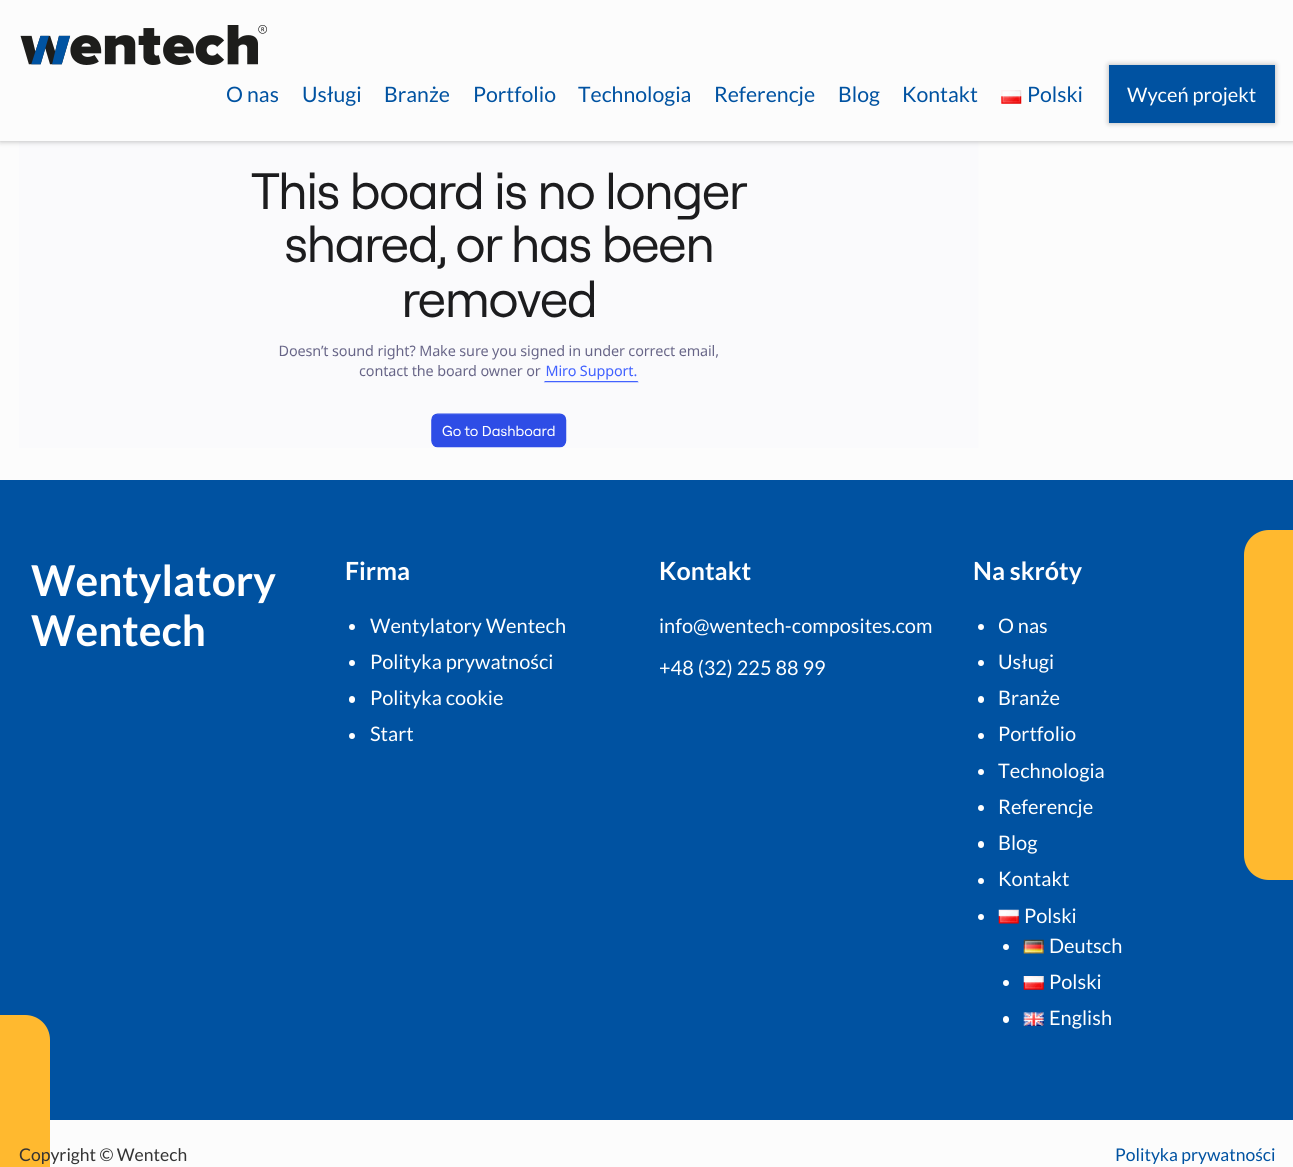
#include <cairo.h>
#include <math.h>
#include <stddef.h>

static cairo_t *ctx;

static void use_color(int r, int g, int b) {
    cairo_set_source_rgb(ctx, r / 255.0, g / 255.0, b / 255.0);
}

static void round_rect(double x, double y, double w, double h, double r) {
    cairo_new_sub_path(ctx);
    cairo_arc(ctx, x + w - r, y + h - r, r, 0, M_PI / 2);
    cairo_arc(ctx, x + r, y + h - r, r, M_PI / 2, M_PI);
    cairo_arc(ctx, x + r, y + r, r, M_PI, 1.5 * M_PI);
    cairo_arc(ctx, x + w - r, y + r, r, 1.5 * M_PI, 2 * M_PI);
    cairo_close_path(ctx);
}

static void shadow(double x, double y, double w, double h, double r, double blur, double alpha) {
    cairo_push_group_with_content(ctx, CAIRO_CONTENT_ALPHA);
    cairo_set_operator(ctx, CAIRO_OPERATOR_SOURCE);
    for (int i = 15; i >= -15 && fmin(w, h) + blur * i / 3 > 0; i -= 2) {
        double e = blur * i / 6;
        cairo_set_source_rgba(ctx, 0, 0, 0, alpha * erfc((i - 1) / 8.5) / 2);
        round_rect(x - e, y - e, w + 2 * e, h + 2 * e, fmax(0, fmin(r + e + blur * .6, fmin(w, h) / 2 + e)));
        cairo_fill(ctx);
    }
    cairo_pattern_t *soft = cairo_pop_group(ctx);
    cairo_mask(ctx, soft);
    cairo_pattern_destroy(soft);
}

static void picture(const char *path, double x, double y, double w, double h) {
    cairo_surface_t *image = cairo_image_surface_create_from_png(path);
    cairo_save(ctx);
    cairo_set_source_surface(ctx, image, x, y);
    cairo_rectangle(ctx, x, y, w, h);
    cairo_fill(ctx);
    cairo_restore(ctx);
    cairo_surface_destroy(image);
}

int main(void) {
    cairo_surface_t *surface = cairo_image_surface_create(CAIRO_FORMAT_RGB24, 1293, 1167);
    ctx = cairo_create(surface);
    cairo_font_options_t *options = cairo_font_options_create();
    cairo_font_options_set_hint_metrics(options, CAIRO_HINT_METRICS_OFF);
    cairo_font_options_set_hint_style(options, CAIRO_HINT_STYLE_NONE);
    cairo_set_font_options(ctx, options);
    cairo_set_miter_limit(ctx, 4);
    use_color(252, 252, 252);
    cairo_paint(ctx);
    picture("img3.png", 18, 141, 961, 307);
    use_color(0, 0, 0);
    shadow(0, 0, 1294, 141, 0, 3, 0.3);
    use_color(252, 252, 252);
    cairo_rectangle(ctx, 0, 0, 1293, 141);
    cairo_fill(ctx);
    picture("img1.png", 20, 25, 247, 40);
    cairo_select_font_face(ctx, "Lato", CAIRO_FONT_SLANT_NORMAL, CAIRO_FONT_WEIGHT_NORMAL);
    cairo_set_font_size(ctx, 21.25);
    use_color(0, 82, 161);
    cairo_move_to(ctx, 226, 102);
    cairo_show_text(ctx, "O nas");
    cairo_move_to(ctx, 302, 102);
    cairo_show_text(ctx, "Usługi");
    cairo_move_to(ctx, 384, 102);
    cairo_show_text(ctx, "Branże");
    cairo_move_to(ctx, 473, 102);
    cairo_show_text(ctx, "Portfolio");
    cairo_move_to(ctx, 578, 102);
    cairo_show_text(ctx, "Technologia");
    cairo_move_to(ctx, 714, 102);
    cairo_show_text(ctx, "Referencje");
    cairo_move_to(ctx, 838, 102);
    cairo_show_text(ctx, "Blog");
    cairo_move_to(ctx, 902, 102);
    cairo_show_text(ctx, "Kontakt");
    picture("img2.png", 1001, 90, 21, 14);
    cairo_move_to(ctx, 1027, 102);
    cairo_show_text(ctx, "Polski");
    use_color(0, 0, 0);
    shadow(1109, 65, 166, 58, 0, 3, 0.3);
    use_color(0, 82, 161);
    cairo_rectangle(ctx, 1109, 65, 166, 58);
    cairo_fill(ctx);
    cairo_set_font_size(ctx, 20);
    use_color(255, 255, 255);
    cairo_move_to(ctx, 1127, 102);
    cairo_show_text(ctx, "Wyceń projekt");
    use_color(0, 82, 161);
    cairo_rectangle(ctx, 0, 480, 1293, 640);
    cairo_fill(ctx);
    cairo_select_font_face(ctx, "Lato", CAIRO_FONT_SLANT_NORMAL, CAIRO_FONT_WEIGHT_BOLD);
    cairo_set_font_size(ctx, 42.5);
    use_color(255, 255, 255);
    cairo_move_to(ctx, 31, 596);
    cairo_show_text(ctx, "Wentylatory");
    cairo_move_to(ctx, 31, 646);
    cairo_show_text(ctx, "Wentech");
    cairo_set_font_size(ctx, 25);
    cairo_move_to(ctx, 345, 580);
    cairo_show_text(ctx, "Firma");
    cairo_new_path(ctx);
    cairo_arc(ctx, 352, 627, 3, 0, 2 * M_PI);
    cairo_fill(ctx);
    cairo_select_font_face(ctx, "Lato", CAIRO_FONT_SLANT_NORMAL, CAIRO_FONT_WEIGHT_NORMAL);
    cairo_set_font_size(ctx, 20);
    cairo_move_to(ctx, 370, 633);
    cairo_show_text(ctx, "Wentylatory Wentech");
    cairo_new_path(ctx);
    cairo_arc(ctx, 352, 663, 3, 0, 2 * M_PI);
    cairo_fill(ctx);
    cairo_move_to(ctx, 370, 669);
    cairo_show_text(ctx, "Polityka prywatności");
    round_rect(349, 696, 6, 7, 3);
    cairo_fill(ctx);
    cairo_move_to(ctx, 370, 705);
    cairo_show_text(ctx, "Polityka cookie");
    cairo_new_path(ctx);
    cairo_arc(ctx, 352, 736, 3, 0, 2 * M_PI);
    cairo_fill(ctx);
    cairo_move_to(ctx, 370, 741);
    cairo_show_text(ctx, "Start");
    cairo_select_font_face(ctx, "Lato", CAIRO_FONT_SLANT_NORMAL, CAIRO_FONT_WEIGHT_BOLD);
    cairo_set_font_size(ctx, 25);
    cairo_move_to(ctx, 659, 580);
    cairo_show_text(ctx, "Kontakt");
    cairo_select_font_face(ctx, "Lato", CAIRO_FONT_SLANT_NORMAL, CAIRO_FONT_WEIGHT_NORMAL);
    cairo_set_font_size(ctx, 20);
    cairo_move_to(ctx, 659, 633);
    cairo_show_text(ctx, "info@wentech-composites.com");
    cairo_move_to(ctx, 659, 675);
    cairo_show_text(ctx, "+48 (32) 225 88 99");
    cairo_select_font_face(ctx, "Lato", CAIRO_FONT_SLANT_NORMAL, CAIRO_FONT_WEIGHT_BOLD);
    cairo_set_font_size(ctx, 25);
    cairo_move_to(ctx, 973, 580);
    cairo_show_text(ctx, "Na skróty");
    cairo_new_path(ctx);
    cairo_arc(ctx, 981, 627, 3, 0, 2 * M_PI);
    cairo_fill(ctx);
    cairo_select_font_face(ctx, "Lato", CAIRO_FONT_SLANT_NORMAL, CAIRO_FONT_WEIGHT_NORMAL);
    cairo_set_font_size(ctx, 20);
    cairo_move_to(ctx, 998, 633);
    cairo_show_text(ctx, "O nas");
    cairo_new_path(ctx);
    cairo_arc(ctx, 981, 663, 3, 0, 2 * M_PI);
    cairo_fill(ctx);
    cairo_move_to(ctx, 998, 669);
    cairo_show_text(ctx, "Usługi");
    round_rect(978, 696, 6, 7, 3);
    cairo_fill(ctx);
    cairo_move_to(ctx, 998, 705);
    cairo_show_text(ctx, "Branże");
    cairo_new_path(ctx);
    cairo_arc(ctx, 981, 736, 3, 0, 2 * M_PI);
    cairo_fill(ctx);
    cairo_move_to(ctx, 998, 741);
    cairo_show_text(ctx, "Portfolio");
    cairo_new_path(ctx);
    cairo_arc(ctx, 981, 772, 3, 0, 2 * M_PI);
    cairo_fill(ctx);
    cairo_move_to(ctx, 998, 778);
    cairo_show_text(ctx, "Technologia");
    cairo_new_path(ctx);
    cairo_arc(ctx, 981, 808, 3, 0, 2 * M_PI);
    cairo_fill(ctx);
    cairo_move_to(ctx, 998, 814);
    cairo_show_text(ctx, "Referencje");
    round_rect(978, 841, 6, 7, 3);
    cairo_fill(ctx);
    cairo_move_to(ctx, 998, 850);
    cairo_show_text(ctx, "Blog");
    cairo_new_path(ctx);
    cairo_arc(ctx, 981, 881, 3, 0, 2 * M_PI);
    cairo_fill(ctx);
    cairo_move_to(ctx, 998, 886);
    cairo_show_text(ctx, "Kontakt");
    cairo_new_path(ctx);
    cairo_arc(ctx, 981, 917, 3, 0, 2 * M_PI);
    cairo_fill(ctx);
    picture("img4.png", 998, 909, 21, 15);
    cairo_move_to(ctx, 1024, 923);
    cairo_show_text(ctx, "Polski");
    cairo_new_path(ctx);
    cairo_arc(ctx, 1006, 947, 3, 0, 2 * M_PI);
    cairo_fill(ctx);
    picture("img5.png", 1023, 939, 21, 15);
    cairo_move_to(ctx, 1049, 953);
    cairo_show_text(ctx, "Deutsch");
    cairo_new_path(ctx);
    cairo_arc(ctx, 1006, 983, 3, 0, 2 * M_PI);
    cairo_fill(ctx);
    picture("img6.png", 1023, 976, 21, 14);
    cairo_move_to(ctx, 1049, 989);
    cairo_show_text(ctx, "Polski");
    round_rect(1003, 1016, 6, 7, 3);
    cairo_fill(ctx);
    picture("img7.png", 1023, 1012, 21, 14);
    cairo_move_to(ctx, 1049, 1025);
    cairo_show_text(ctx, "English");
    use_color(255, 185, 47);
    cairo_new_path(ctx);
    cairo_move_to(ctx, 1269, 530);
    cairo_line_to(ctx, 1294, 530);
    cairo_line_to(ctx, 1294, 880);
    cairo_line_to(ctx, 1269, 880);
    cairo_curve_to(ctx, 1255, 880, 1244, 869, 1244, 855);
    cairo_line_to(ctx, 1244, 555);
    cairo_curve_to(ctx, 1244, 541, 1255, 530, 1269, 530);
    cairo_close_path(ctx);
    cairo_fill(ctx);
    cairo_new_path(ctx);
    cairo_move_to(ctx, 0, 1015);
    cairo_line_to(ctx, 25, 1015);
    cairo_curve_to(ctx, 39, 1015, 50, 1026, 50, 1040);
    cairo_line_to(ctx, 50, 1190);
    cairo_line_to(ctx, 0, 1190);
    cairo_close_path(ctx);
    cairo_fill(ctx);
    cairo_set_font_size(ctx, 17.5);
    use_color(51, 51, 51);
    cairo_move_to(ctx, 19, 1161);
    cairo_show_text(ctx, "Copyright © Wentech");
    use_color(0, 82, 161);
    cairo_move_to(ctx, 1115, 1161);
    cairo_show_text(ctx, "Polityka prywatności");
    cairo_surface_write_to_png(surface, "result.png");
    cairo_font_options_destroy(options);
    cairo_destroy(ctx);
    cairo_surface_destroy(surface);
    return 0;
}
